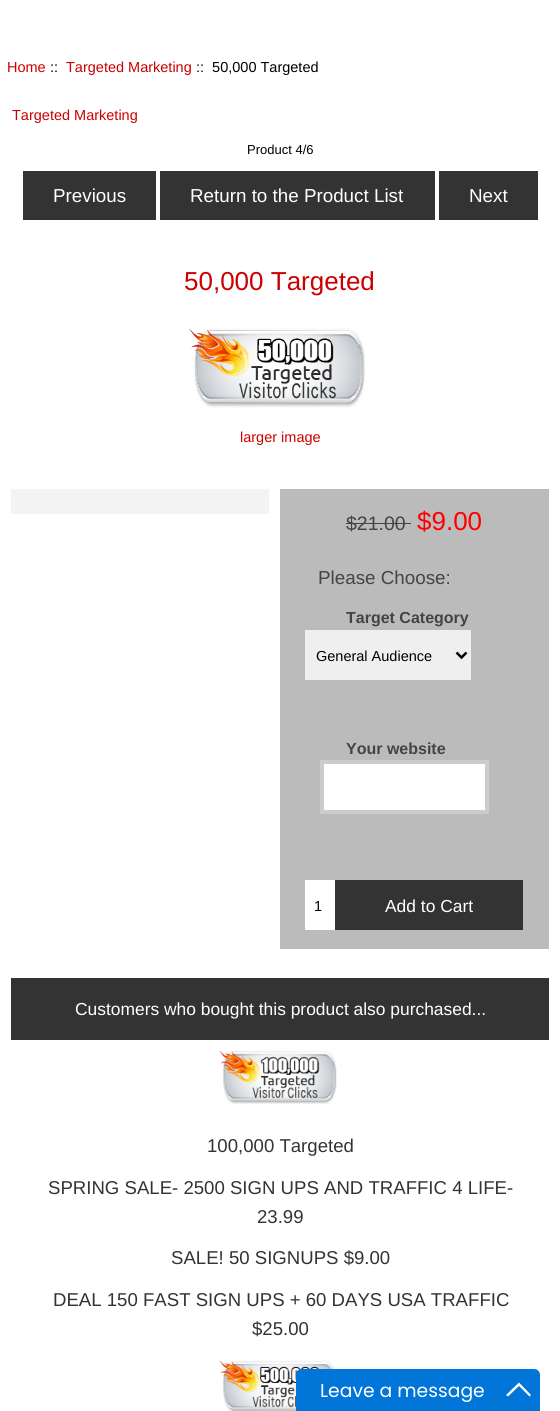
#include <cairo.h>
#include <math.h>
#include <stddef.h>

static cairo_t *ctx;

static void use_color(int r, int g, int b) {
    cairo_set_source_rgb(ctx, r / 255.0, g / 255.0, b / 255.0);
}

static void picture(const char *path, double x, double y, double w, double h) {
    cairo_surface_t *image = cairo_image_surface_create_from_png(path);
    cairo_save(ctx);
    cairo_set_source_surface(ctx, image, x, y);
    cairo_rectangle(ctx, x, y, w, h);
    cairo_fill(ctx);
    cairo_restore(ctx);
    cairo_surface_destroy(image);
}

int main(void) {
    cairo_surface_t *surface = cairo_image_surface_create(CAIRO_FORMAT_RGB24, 560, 1411);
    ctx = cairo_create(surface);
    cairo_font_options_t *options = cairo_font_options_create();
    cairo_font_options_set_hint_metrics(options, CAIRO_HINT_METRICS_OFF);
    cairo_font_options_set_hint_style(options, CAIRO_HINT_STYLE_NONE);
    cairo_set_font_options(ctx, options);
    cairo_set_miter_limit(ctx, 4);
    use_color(255, 255, 255);
    cairo_paint(ctx);
    cairo_select_font_face(ctx, "Liberation Sans", CAIRO_FONT_SLANT_NORMAL, CAIRO_FONT_WEIGHT_NORMAL);
    cairo_set_font_size(ctx, 14.5);
    use_color(204, 0, 0);
    cairo_move_to(ctx, 7, 72);
    cairo_show_text(ctx, "Home");
    use_color(0, 0, 0);
    cairo_move_to(ctx, 50, 72);
    cairo_show_text(ctx, "::");
    use_color(204, 0, 0);
    cairo_move_to(ctx, 66, 72);
    cairo_show_text(ctx, "Targeted Marketing");
    use_color(0, 0, 0);
    cairo_move_to(ctx, 196, 72);
    cairo_show_text(ctx, "::  50,000 Targeted");
    use_color(204, 0, 0);
    cairo_move_to(ctx, 12, 120);
    cairo_show_text(ctx, "Targeted Marketing");
    cairo_set_font_size(ctx, 13);
    use_color(0, 0, 0);
    cairo_move_to(ctx, 247, 154);
    cairo_show_text(ctx, "Product 4/6");
    use_color(51, 51, 51);
    cairo_rectangle(ctx, 23, 171, 133, 49);
    cairo_fill(ctx);
    cairo_set_font_size(ctx, 18.8);
    use_color(255, 255, 255);
    cairo_move_to(ctx, 53, 202);
    cairo_show_text(ctx, "Previous");
    use_color(51, 51, 51);
    cairo_rectangle(ctx, 160, 171, 275, 49);
    cairo_fill(ctx);
    use_color(255, 255, 255);
    cairo_move_to(ctx, 190, 202);
    cairo_show_text(ctx, "Return to the Product List");
    use_color(51, 51, 51);
    cairo_rectangle(ctx, 439, 171, 99, 49);
    cairo_fill(ctx);
    use_color(255, 255, 255);
    cairo_move_to(ctx, 469, 202);
    cairo_show_text(ctx, "Next");
    cairo_set_font_size(ctx, 26);
    use_color(204, 0, 0);
    cairo_move_to(ctx, 184, 290);
    cairo_show_text(ctx, "50,000 Targeted");
    picture("img1.png", 188, 327, 177, 81);
    cairo_set_font_size(ctx, 14.5);
    cairo_move_to(ctx, 240, 442);
    cairo_show_text(ctx, "larger image");
    use_color(244, 244, 244);
    cairo_rectangle(ctx, 11, 489, 258, 25);
    cairo_fill(ctx);
    use_color(187, 187, 187);
    cairo_rectangle(ctx, 280, 489, 269, 460);
    cairo_fill(ctx);
    cairo_set_font_size(ctx, 19.5);
    use_color(68, 68, 68);
    cairo_move_to(ctx, 346, 530);
    cairo_show_text(ctx, "$21.00");
    cairo_rectangle(ctx, 346, 523, 65, 1);
    cairo_fill(ctx);
    cairo_set_font_size(ctx, 26);
    use_color(255, 0, 0);
    cairo_move_to(ctx, 417, 530);
    cairo_show_text(ctx, "$9.00");
    cairo_set_font_size(ctx, 18.8);
    use_color(68, 68, 68);
    cairo_move_to(ctx, 318, 584);
    cairo_show_text(ctx, "Please Choose:");
    cairo_select_font_face(ctx, "Liberation Sans", CAIRO_FONT_SLANT_NORMAL, CAIRO_FONT_WEIGHT_BOLD);
    cairo_set_font_size(ctx, 16);
    cairo_move_to(ctx, 346, 623);
    cairo_show_text(ctx, "Target Category");
    use_color(239, 239, 239);
    cairo_rectangle(ctx, 305, 630, 166, 50);
    cairo_fill(ctx);
    cairo_new_path(ctx);
    cairo_move_to(ctx, 456.5, 652.5);
    cairo_line_to(ctx, 461.5, 657.5);
    cairo_line_to(ctx, 466.5, 652.5);
    use_color(0, 0, 0);
    cairo_set_line_width(ctx, 2.5);
    cairo_stroke(ctx);
    cairo_select_font_face(ctx, "Liberation Sans", CAIRO_FONT_SLANT_NORMAL, CAIRO_FONT_WEIGHT_NORMAL);
    cairo_set_font_size(ctx, 14.5);
    cairo_move_to(ctx, 316, 661);
    cairo_show_text(ctx, "General Audience");
    cairo_select_font_face(ctx, "Liberation Sans", CAIRO_FONT_SLANT_NORMAL, CAIRO_FONT_WEIGHT_BOLD);
    cairo_set_font_size(ctx, 16);
    use_color(68, 68, 68);
    cairo_move_to(ctx, 346, 754);
    cairo_show_text(ctx, "Your website");
    use_color(255, 255, 255);
    cairo_rectangle(ctx, 322, 762, 165, 50);
    cairo_fill_preserve(ctx);
    use_color(204, 204, 204);
    cairo_set_line_width(ctx, 4);
    cairo_stroke(ctx);
    use_color(255, 255, 255);
    cairo_rectangle(ctx, 305, 880, 30, 50);
    cairo_fill(ctx);
    cairo_select_font_face(ctx, "Liberation Sans", CAIRO_FONT_SLANT_NORMAL, CAIRO_FONT_WEIGHT_NORMAL);
    cairo_set_font_size(ctx, 14.5);
    use_color(0, 0, 0);
    cairo_move_to(ctx, 314, 911);
    cairo_show_text(ctx, "1");
    use_color(51, 51, 51);
    cairo_rectangle(ctx, 335, 880, 188, 50);
    cairo_fill(ctx);
    cairo_set_font_size(ctx, 17.4);
    use_color(255, 255, 255);
    cairo_move_to(ctx, 385, 912);
    cairo_show_text(ctx, "Add to Cart");
    use_color(51, 51, 51);
    cairo_rectangle(ctx, 11, 978, 538, 62);
    cairo_fill(ctx);
    use_color(255, 255, 255);
    cairo_move_to(ctx, 75, 1015);
    cairo_show_text(ctx, "Customers who bought this product also purchased...");
    picture("img2.png", 219, 1050, 118, 54);
    cairo_set_font_size(ctx, 18.6);
    use_color(51, 51, 51);
    cairo_move_to(ctx, 207, 1152);
    cairo_show_text(ctx, "100,000 Targeted");
    cairo_move_to(ctx, 48, 1194);
    cairo_show_text(ctx, "SPRING SALE- 2500 SIGN UPS AND TRAFFIC 4 LIFE-");
    cairo_move_to(ctx, 257, 1223);
    cairo_show_text(ctx, "23.99");
    cairo_move_to(ctx, 171, 1264);
    cairo_show_text(ctx, "SALE! 50 SIGNUPS $9.00");
    cairo_move_to(ctx, 53, 1306);
    cairo_show_text(ctx, "DEAL 150 FAST SIGN UPS + 60 DAYS USA TRAFFIC");
    cairo_move_to(ctx, 252, 1335);
    cairo_show_text(ctx, "$25.00");
    picture("img3.png", 219, 1360, 118, 51);
    use_color(2, 117, 216);
    cairo_new_path(ctx);
    cairo_move_to(ctx, 302, 1369);
    cairo_line_to(ctx, 534, 1369);
    cairo_curve_to(ctx, 537.5, 1369, 540, 1371.5, 540, 1375);
    cairo_line_to(ctx, 540, 1411);
    cairo_line_to(ctx, 296, 1411);
    cairo_line_to(ctx, 296, 1375);
    cairo_curve_to(ctx, 296, 1371.5, 298.5, 1369, 302, 1369);
    cairo_close_path(ctx);
    cairo_fill(ctx);
    cairo_select_font_face(ctx, "Poppins", CAIRO_FONT_SLANT_NORMAL, CAIRO_FONT_WEIGHT_NORMAL);
    cairo_set_font_size(ctx, 18.75);
    use_color(255, 255, 255);
    cairo_move_to(ctx, 320, 1397);
    cairo_show_text(ctx, "Leave a message");
    cairo_new_path(ctx);
    cairo_move_to(ctx, 519, 1382.5);
    cairo_line_to(ctx, 531, 1395);
    cairo_line_to(ctx, 529.5, 1396.5);
    cairo_line_to(ctx, 519, 1386);
    cairo_line_to(ctx, 508, 1396.5);
    cairo_line_to(ctx, 506, 1395);
    cairo_close_path(ctx);
    cairo_fill(ctx);
    cairo_surface_write_to_png(surface, "result.png");
    cairo_font_options_destroy(options);
    cairo_destroy(ctx);
    cairo_surface_destroy(surface);
    return 0;
}
